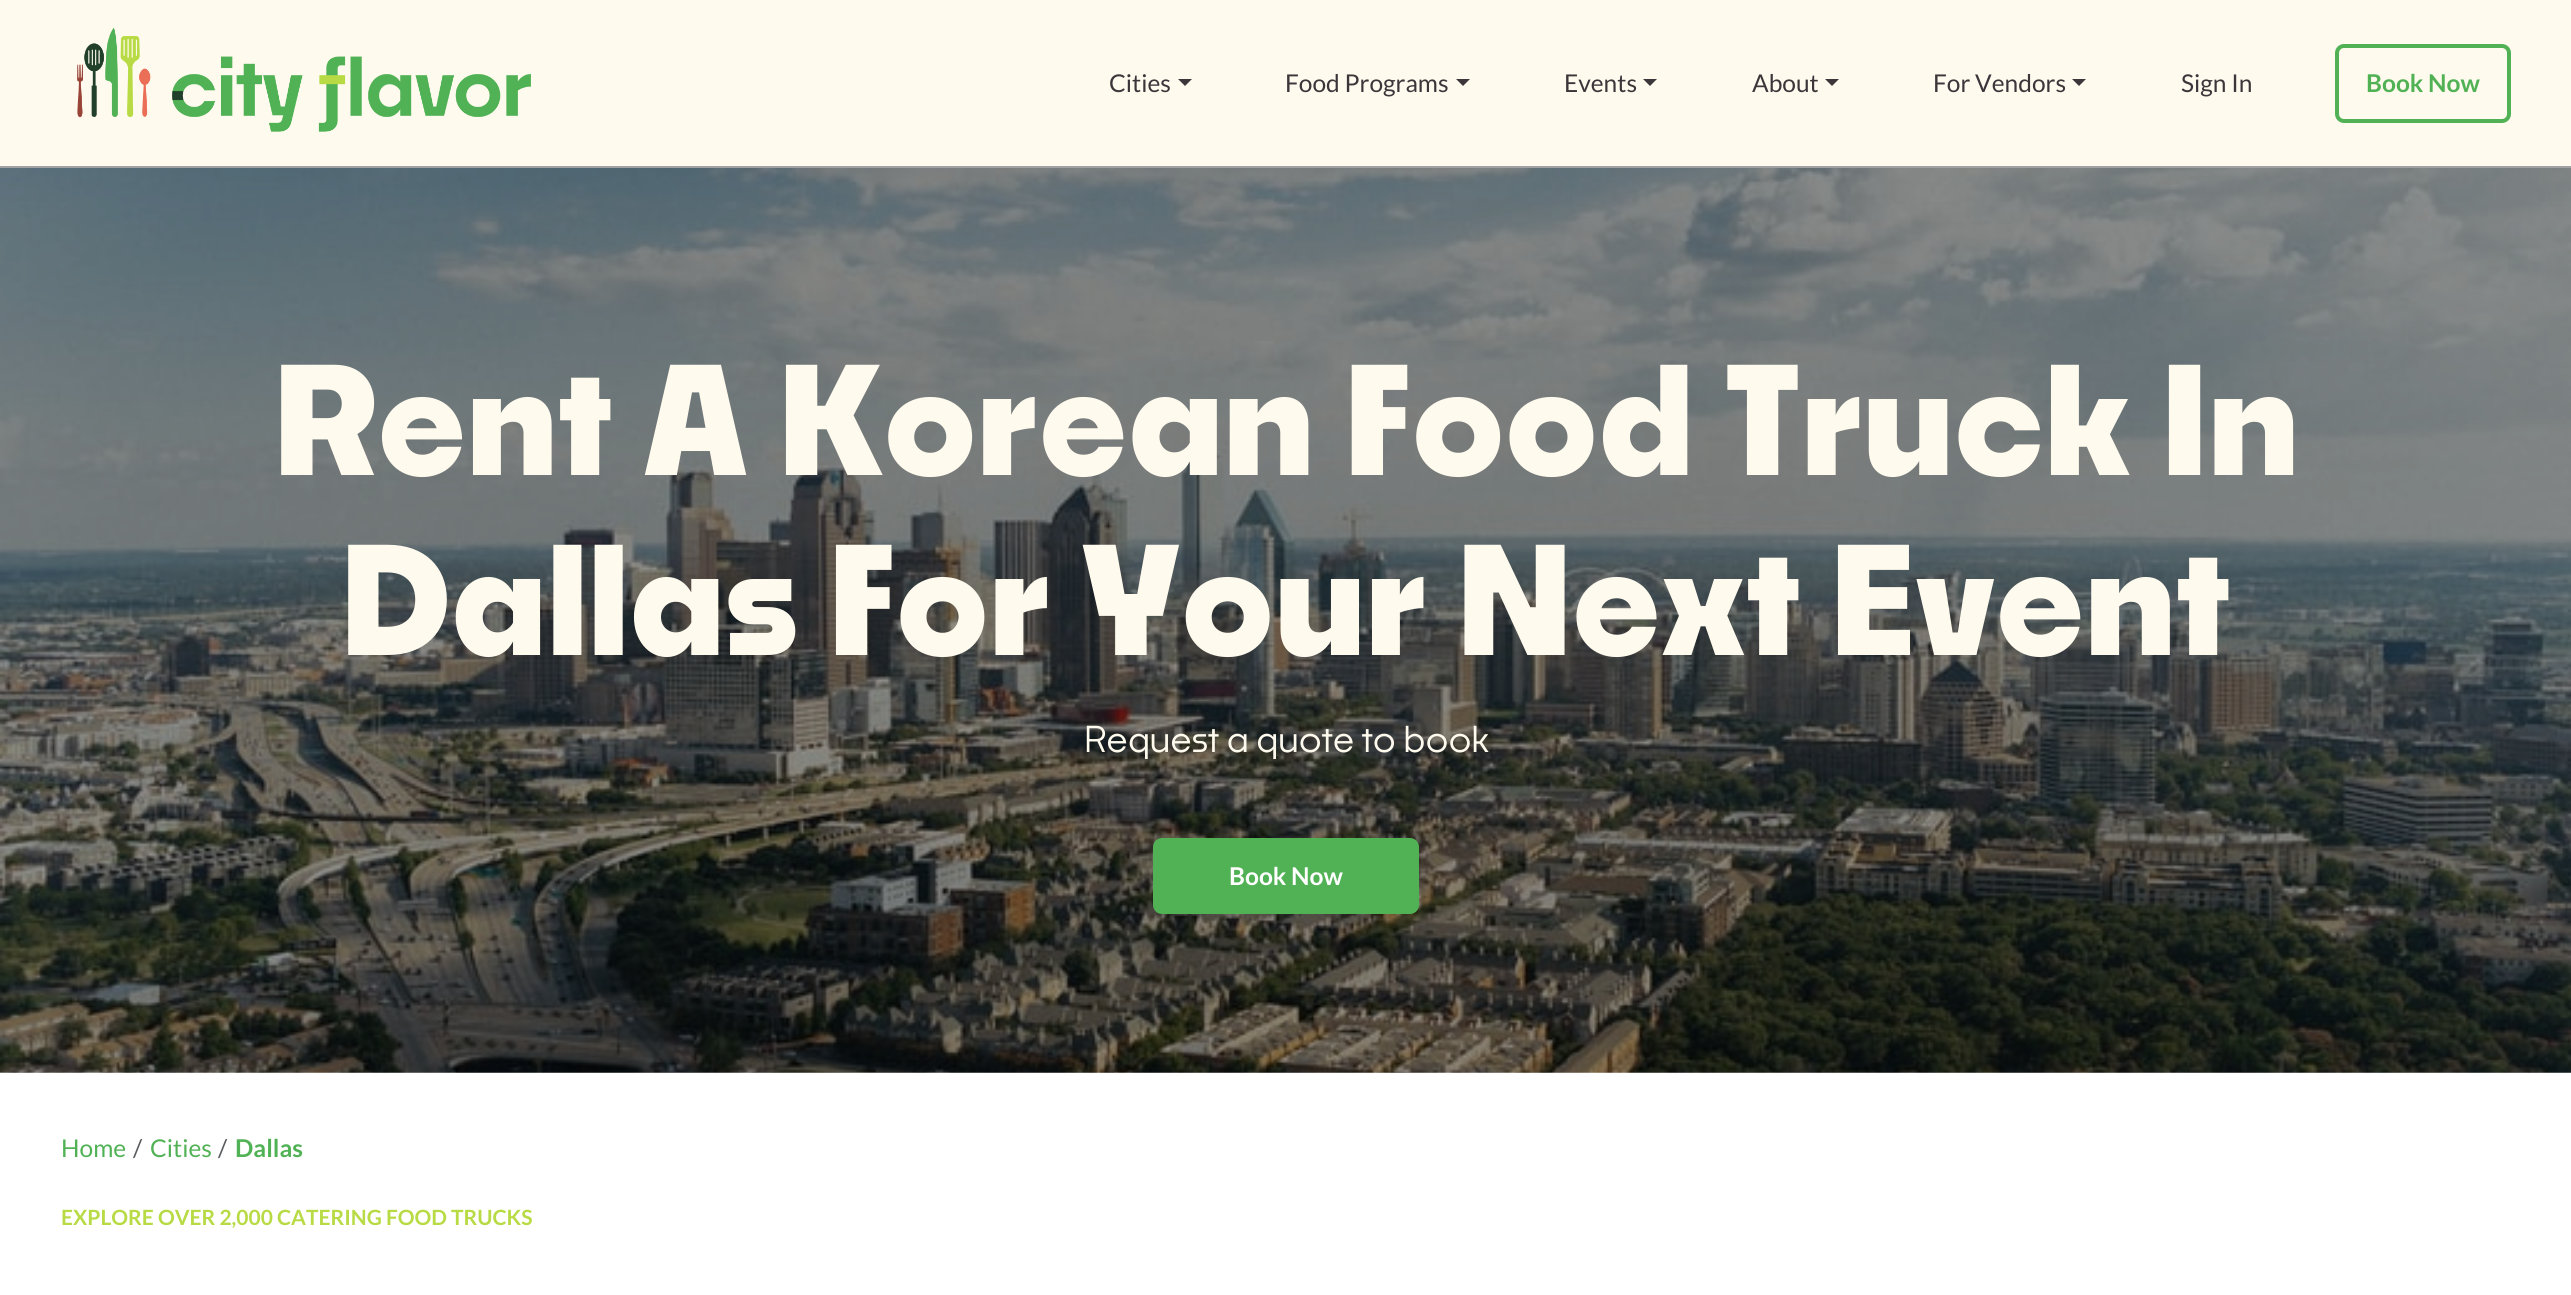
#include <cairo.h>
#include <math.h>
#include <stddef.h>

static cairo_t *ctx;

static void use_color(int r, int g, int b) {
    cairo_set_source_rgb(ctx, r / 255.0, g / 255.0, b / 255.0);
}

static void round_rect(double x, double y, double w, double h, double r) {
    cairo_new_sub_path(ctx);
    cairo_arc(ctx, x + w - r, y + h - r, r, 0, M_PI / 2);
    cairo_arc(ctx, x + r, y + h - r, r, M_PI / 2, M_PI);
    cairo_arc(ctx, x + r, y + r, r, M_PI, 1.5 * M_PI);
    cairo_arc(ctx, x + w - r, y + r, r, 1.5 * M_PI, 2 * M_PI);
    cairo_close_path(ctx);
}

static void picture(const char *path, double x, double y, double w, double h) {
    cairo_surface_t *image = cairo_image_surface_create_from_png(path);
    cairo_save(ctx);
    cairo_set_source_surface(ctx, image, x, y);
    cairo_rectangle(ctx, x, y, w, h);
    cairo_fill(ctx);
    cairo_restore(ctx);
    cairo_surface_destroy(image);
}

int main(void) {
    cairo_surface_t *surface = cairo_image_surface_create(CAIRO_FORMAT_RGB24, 2571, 1295);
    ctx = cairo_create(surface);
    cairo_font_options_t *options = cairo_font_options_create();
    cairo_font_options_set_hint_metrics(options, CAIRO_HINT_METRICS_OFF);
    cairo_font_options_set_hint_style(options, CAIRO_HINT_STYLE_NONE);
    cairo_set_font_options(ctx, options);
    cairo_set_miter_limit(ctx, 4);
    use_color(255, 255, 255);
    cairo_paint(ctx);
    use_color(255, 250, 238);
    cairo_rectangle(ctx, 0, 0, 2571, 166);
    cairo_fill(ctx);
    use_color(161, 161, 161);
    cairo_rectangle(ctx, 0, 166, 2571, 2);
    cairo_fill(ctx);
    picture("img1.png", 77, 27, 454, 105);
    cairo_select_font_face(ctx, "Lato", CAIRO_FONT_SLANT_NORMAL, CAIRO_FONT_WEIGHT_NORMAL);
    cairo_set_font_size(ctx, 24.5);
    use_color(59, 54, 58);
    cairo_move_to(ctx, 1109, 92);
    cairo_show_text(ctx, "Cities");
    cairo_new_path(ctx);
    cairo_move_to(ctx, 1178, 79);
    cairo_line_to(ctx, 1192, 79);
    cairo_line_to(ctx, 1185, 86);
    cairo_close_path(ctx);
    cairo_fill(ctx);
    cairo_move_to(ctx, 1285, 92);
    cairo_show_text(ctx, "Food Programs");
    cairo_new_path(ctx);
    cairo_move_to(ctx, 1456, 79);
    cairo_line_to(ctx, 1470, 79);
    cairo_line_to(ctx, 1463, 86);
    cairo_close_path(ctx);
    cairo_fill(ctx);
    cairo_move_to(ctx, 1564, 92);
    cairo_show_text(ctx, "Events");
    cairo_new_path(ctx);
    cairo_move_to(ctx, 1643, 79);
    cairo_line_to(ctx, 1657, 79);
    cairo_line_to(ctx, 1650, 86);
    cairo_close_path(ctx);
    cairo_fill(ctx);
    cairo_move_to(ctx, 1752, 92);
    cairo_show_text(ctx, "About");
    cairo_new_path(ctx);
    cairo_move_to(ctx, 1825, 79);
    cairo_line_to(ctx, 1839, 79);
    cairo_line_to(ctx, 1832, 86);
    cairo_close_path(ctx);
    cairo_fill(ctx);
    cairo_move_to(ctx, 1933, 92);
    cairo_show_text(ctx, "For Vendors");
    cairo_new_path(ctx);
    cairo_move_to(ctx, 2072, 79);
    cairo_line_to(ctx, 2086, 79);
    cairo_line_to(ctx, 2079, 86);
    cairo_close_path(ctx);
    cairo_fill(ctx);
    cairo_move_to(ctx, 2181, 92);
    cairo_show_text(ctx, "Sign In");
    round_rect(2337, 46, 172, 75, 7);
    use_color(81, 178, 85);
    cairo_set_line_width(ctx, 4);
    cairo_stroke(ctx);
    cairo_select_font_face(ctx, "Lato", CAIRO_FONT_SLANT_NORMAL, CAIRO_FONT_WEIGHT_BOLD);
    cairo_move_to(ctx, 2366, 92);
    cairo_show_text(ctx, "Book Now");
    picture("img2.png", 0, 168, 2571, 905);
    cairo_select_font_face(ctx, "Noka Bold", CAIRO_FONT_SLANT_NORMAL, CAIRO_FONT_WEIGHT_BOLD);
    cairo_set_font_size(ctx, 147);
    use_color(255, 250, 238);
    cairo_move_to(ctx, 274, 475);
    cairo_show_text(ctx, "Rent A Korean Food Truck In");
    cairo_move_to(ctx, 341, 655);
    cairo_show_text(ctx, "Dallas For Your Next Event");
    cairo_select_font_face(ctx, "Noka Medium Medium", CAIRO_FONT_SLANT_NORMAL, CAIRO_FONT_WEIGHT_NORMAL);
    cairo_set_font_size(ctx, 35);
    cairo_move_to(ctx, 1084, 752);
    cairo_show_text(ctx, "Request a quote to book");
    use_color(81, 178, 85);
    round_rect(1154, 839, 264, 74, 8);
    cairo_fill_preserve(ctx);
    cairo_set_line_width(ctx, 2);
    cairo_stroke(ctx);
    cairo_select_font_face(ctx, "Lato", CAIRO_FONT_SLANT_NORMAL, CAIRO_FONT_WEIGHT_BOLD);
    cairo_set_font_size(ctx, 24.5);
    use_color(255, 255, 255);
    cairo_move_to(ctx, 1229, 885);
    cairo_show_text(ctx, "Book Now");
    cairo_select_font_face(ctx, "Lato", CAIRO_FONT_SLANT_NORMAL, CAIRO_FONT_WEIGHT_NORMAL);
    use_color(81, 178, 85);
    cairo_move_to(ctx, 61, 1157);
    cairo_show_text(ctx, "Home");
    use_color(89, 92, 95);
    cairo_move_to(ctx, 133, 1157);
    cairo_show_text(ctx, "/");
    use_color(81, 178, 85);
    cairo_move_to(ctx, 150, 1157);
    cairo_show_text(ctx, "Cities");
    use_color(89, 92, 95);
    cairo_move_to(ctx, 218, 1157);
    cairo_show_text(ctx, "/");
    cairo_select_font_face(ctx, "Lato", CAIRO_FONT_SLANT_NORMAL, CAIRO_FONT_WEIGHT_BOLD);
    use_color(81, 178, 85);
    cairo_move_to(ctx, 235, 1157);
    cairo_show_text(ctx, "Dallas");
    cairo_set_font_size(ctx, 21);
    use_color(184, 219, 69);
    cairo_move_to(ctx, 61, 1225);
    cairo_show_text(ctx, "EXPLORE OVER 2,000 CATERING FOOD TRUCKS");
    cairo_surface_write_to_png(surface, "result.png");
    cairo_font_options_destroy(options);
    cairo_destroy(ctx);
    cairo_surface_destroy(surface);
    return 0;
}
